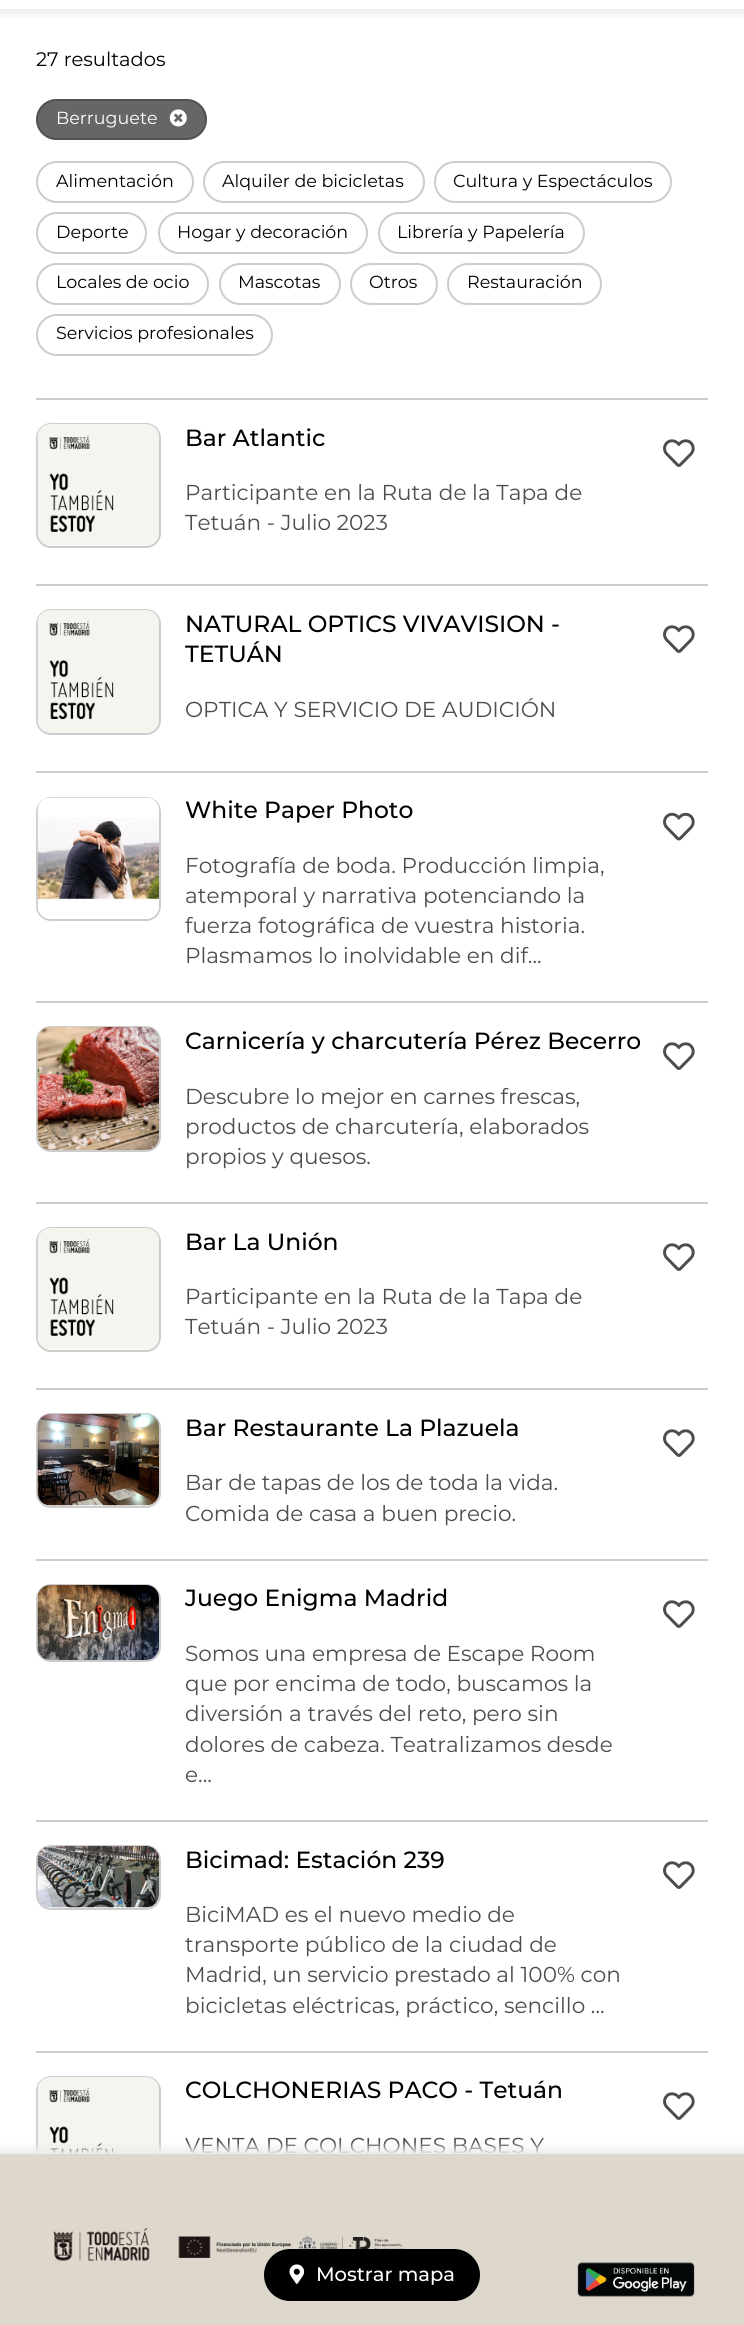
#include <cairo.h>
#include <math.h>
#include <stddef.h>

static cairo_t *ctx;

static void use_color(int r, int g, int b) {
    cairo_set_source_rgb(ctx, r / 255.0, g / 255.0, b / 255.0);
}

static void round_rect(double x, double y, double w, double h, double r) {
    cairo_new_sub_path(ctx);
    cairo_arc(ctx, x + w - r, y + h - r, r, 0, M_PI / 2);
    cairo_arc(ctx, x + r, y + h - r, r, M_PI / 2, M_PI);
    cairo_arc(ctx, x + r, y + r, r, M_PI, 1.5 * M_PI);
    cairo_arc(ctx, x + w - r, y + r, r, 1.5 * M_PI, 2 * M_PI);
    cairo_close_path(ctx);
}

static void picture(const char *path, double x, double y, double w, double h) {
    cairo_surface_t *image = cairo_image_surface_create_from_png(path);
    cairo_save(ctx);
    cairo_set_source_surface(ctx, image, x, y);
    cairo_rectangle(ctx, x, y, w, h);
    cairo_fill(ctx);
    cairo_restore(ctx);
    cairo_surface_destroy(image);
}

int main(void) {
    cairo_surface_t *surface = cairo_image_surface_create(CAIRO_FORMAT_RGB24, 744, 2325);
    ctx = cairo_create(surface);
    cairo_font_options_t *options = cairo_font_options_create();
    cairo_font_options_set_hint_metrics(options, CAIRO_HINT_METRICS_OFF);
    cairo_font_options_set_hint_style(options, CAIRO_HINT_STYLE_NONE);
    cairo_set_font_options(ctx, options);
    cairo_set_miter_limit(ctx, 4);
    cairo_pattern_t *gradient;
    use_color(255, 255, 255);
    cairo_paint(ctx);
    gradient = cairo_pattern_create_linear(372, 21, 372, 9);
    cairo_pattern_add_color_stop_rgba(gradient, 0, 1, 1, 1, 1);
    cairo_pattern_add_color_stop_rgba(gradient, 1, 0.929, 0.929, 0.929, 1);
    cairo_set_source(ctx, gradient);
    cairo_pattern_destroy(gradient);
    cairo_rectangle(ctx, 0, 9, 744, 10);
    cairo_fill(ctx);
    cairo_select_font_face(ctx, "Montserrat", CAIRO_FONT_SLANT_NORMAL, CAIRO_FONT_WEIGHT_NORMAL);
    cairo_set_font_size(ctx, 19.5);
    use_color(0, 0, 0);
    cairo_move_to(ctx, 36, 66);
    cairo_show_text(ctx, "27 resultados");
    use_color(204, 204, 204);
    cairo_rectangle(ctx, 36, 398, 672, 2);
    cairo_fill(ctx);
    use_color(102, 102, 102);
    round_rect(36, 99, 171, 41, 20.5);
    cairo_fill(ctx);
    round_rect(37, 100, 169, 39, 19.5);
    cairo_set_source_rgba(ctx, 0, 0, 0, 0.2);
    cairo_stroke(ctx);
    cairo_set_font_size(ctx, 17.5);
    use_color(255, 255, 255);
    cairo_move_to(ctx, 56, 124);
    cairo_show_text(ctx, "Berruguete");
    picture("img1.png", 169, 109, 18, 18);
    round_rect(37, 162, 156, 40, 20);
    use_color(204, 204, 204);
    cairo_stroke(ctx);
    use_color(0, 0, 0);
    cairo_move_to(ctx, 56, 187);
    cairo_show_text(ctx, "Alimentación");
    round_rect(204, 162, 220, 40, 20);
    use_color(204, 204, 204);
    cairo_stroke(ctx);
    use_color(0, 0, 0);
    cairo_move_to(ctx, 222, 187);
    cairo_show_text(ctx, "Alquiler de bicicletas");
    round_rect(435, 162, 236, 40, 20);
    use_color(204, 204, 204);
    cairo_stroke(ctx);
    use_color(0, 0, 0);
    cairo_move_to(ctx, 453, 187);
    cairo_show_text(ctx, "Cultura y Espectáculos");
    round_rect(37, 213, 109, 40, 20);
    use_color(204, 204, 204);
    cairo_stroke(ctx);
    use_color(0, 0, 0);
    cairo_move_to(ctx, 56, 238);
    cairo_show_text(ctx, "Deporte");
    round_rect(159, 213, 208, 40, 20);
    use_color(204, 204, 204);
    cairo_stroke(ctx);
    use_color(0, 0, 0);
    cairo_move_to(ctx, 177, 238);
    cairo_show_text(ctx, "Hogar y decoración");
    round_rect(379, 213, 205, 40, 20);
    use_color(204, 204, 204);
    cairo_stroke(ctx);
    use_color(0, 0, 0);
    cairo_move_to(ctx, 397, 238);
    cairo_show_text(ctx, "Librería y Papelería");
    round_rect(37, 264, 171, 40, 20);
    use_color(204, 204, 204);
    cairo_stroke(ctx);
    use_color(0, 0, 0);
    cairo_move_to(ctx, 56, 288);
    cairo_show_text(ctx, "Locales de ocio");
    round_rect(220, 264, 120, 40, 20);
    use_color(204, 204, 204);
    cairo_stroke(ctx);
    use_color(0, 0, 0);
    cairo_move_to(ctx, 238, 288);
    cairo_show_text(ctx, "Mascotas");
    round_rect(351, 264, 86, 40, 20);
    use_color(204, 204, 204);
    cairo_stroke(ctx);
    use_color(0, 0, 0);
    cairo_move_to(ctx, 369, 288);
    cairo_show_text(ctx, "Otros");
    round_rect(448, 264, 153, 40, 20);
    use_color(204, 204, 204);
    cairo_stroke(ctx);
    use_color(0, 0, 0);
    cairo_move_to(ctx, 467, 288);
    cairo_show_text(ctx, "Restauración");
    round_rect(37, 315, 235, 40, 20);
    use_color(204, 204, 204);
    cairo_stroke(ctx);
    use_color(0, 0, 0);
    cairo_move_to(ctx, 56, 339);
    cairo_show_text(ctx, "Servicios profesionales");
    use_color(204, 204, 204);
    cairo_rectangle(ctx, 36, 584, 672, 2);
    cairo_fill(ctx);
    round_rect(37, 424, 123, 123, 14);
    cairo_stroke(ctx);
    picture("img2.png", 37, 424, 122, 122);
    cairo_select_font_face(ctx, "Montserrat Medium", CAIRO_FONT_SLANT_NORMAL, CAIRO_FONT_WEIGHT_NORMAL);
    cairo_set_font_size(ctx, 23.4);
    use_color(0, 0, 0);
    cairo_move_to(ctx, 185, 446);
    cairo_show_text(ctx, "Bar Atlantic");
    cairo_select_font_face(ctx, "Montserrat", CAIRO_FONT_SLANT_NORMAL, CAIRO_FONT_WEIGHT_NORMAL);
    cairo_set_font_size(ctx, 21.6);
    use_color(77, 77, 77);
    cairo_move_to(ctx, 185, 500);
    cairo_show_text(ctx, "Participante en la Ruta de la Tapa de");
    cairo_move_to(ctx, 185, 530);
    cairo_show_text(ctx, "Tetuán - Julio 2023");
    picture("img3.png", 663, 439, 32, 28);
    use_color(204, 204, 204);
    cairo_rectangle(ctx, 36, 771, 672, 2);
    cairo_fill(ctx);
    round_rect(37, 610, 123, 124, 14);
    cairo_stroke(ctx);
    picture("img4.png", 37, 610, 122, 123);
    cairo_select_font_face(ctx, "Montserrat Medium", CAIRO_FONT_SLANT_NORMAL, CAIRO_FONT_WEIGHT_NORMAL);
    cairo_set_font_size(ctx, 23.4);
    use_color(0, 0, 0);
    cairo_move_to(ctx, 185, 632);
    cairo_show_text(ctx, "NATURAL OPTICS VIVAVISION -");
    cairo_move_to(ctx, 185, 662);
    cairo_show_text(ctx, "TETUÁN");
    cairo_select_font_face(ctx, "Montserrat", CAIRO_FONT_SLANT_NORMAL, CAIRO_FONT_WEIGHT_NORMAL);
    cairo_set_font_size(ctx, 21.6);
    use_color(77, 77, 77);
    cairo_move_to(ctx, 185, 717);
    cairo_show_text(ctx, "OPTICA Y SERVICIO DE AUDICIÓN");
    picture("img3.png", 663, 625, 32, 28);
    use_color(204, 204, 204);
    cairo_rectangle(ctx, 36, 1001, 672, 2);
    cairo_fill(ctx);
    round_rect(37, 798, 123, 122, 14);
    cairo_stroke(ctx);
    picture("img5.png", 37, 797, 122, 122);
    cairo_select_font_face(ctx, "Montserrat Medium", CAIRO_FONT_SLANT_NORMAL, CAIRO_FONT_WEIGHT_NORMAL);
    cairo_set_font_size(ctx, 23.4);
    use_color(0, 0, 0);
    cairo_move_to(ctx, 185, 818);
    cairo_show_text(ctx, "White Paper Photo");
    cairo_select_font_face(ctx, "Montserrat", CAIRO_FONT_SLANT_NORMAL, CAIRO_FONT_WEIGHT_NORMAL);
    cairo_set_font_size(ctx, 21.6);
    use_color(77, 77, 77);
    cairo_move_to(ctx, 185, 873);
    cairo_show_text(ctx, "Fotografía de boda. Producción limpia,");
    cairo_move_to(ctx, 185, 903);
    cairo_show_text(ctx, "atemporal y narrativa potenciando la");
    cairo_move_to(ctx, 185, 933);
    cairo_show_text(ctx, "fuerza fotográfica de vuestra historia.");
    cairo_move_to(ctx, 185, 963);
    cairo_show_text(ctx, "Plasmamos lo inolvidable en dif...");
    picture("img6.png", 663, 812, 32, 29);
    use_color(204, 204, 204);
    cairo_rectangle(ctx, 36, 1202, 672, 2);
    cairo_fill(ctx);
    round_rect(37, 1027, 123, 124, 14);
    cairo_stroke(ctx);
    picture("img7.png", 37, 1027, 122, 123);
    cairo_select_font_face(ctx, "Montserrat Medium", CAIRO_FONT_SLANT_NORMAL, CAIRO_FONT_WEIGHT_NORMAL);
    cairo_set_font_size(ctx, 23.4);
    use_color(0, 0, 0);
    cairo_move_to(ctx, 185, 1049);
    cairo_show_text(ctx, "Carnicería y charcutería Pérez Becerro");
    cairo_select_font_face(ctx, "Montserrat", CAIRO_FONT_SLANT_NORMAL, CAIRO_FONT_WEIGHT_NORMAL);
    cairo_set_font_size(ctx, 21.6);
    use_color(77, 77, 77);
    cairo_move_to(ctx, 185, 1104);
    cairo_show_text(ctx, "Descubre lo mejor en carnes frescas,");
    cairo_move_to(ctx, 185, 1134);
    cairo_show_text(ctx, "productos de charcutería, elaborados");
    cairo_move_to(ctx, 185, 1164);
    cairo_show_text(ctx, "propios y quesos.");
    picture("img3.png", 663, 1042, 32, 28);
    use_color(204, 204, 204);
    cairo_rectangle(ctx, 36, 1388, 672, 2);
    cairo_fill(ctx);
    round_rect(37, 1228, 123, 123, 14);
    cairo_stroke(ctx);
    picture("img2.png", 37, 1228, 122, 122);
    cairo_select_font_face(ctx, "Montserrat Medium", CAIRO_FONT_SLANT_NORMAL, CAIRO_FONT_WEIGHT_NORMAL);
    cairo_set_font_size(ctx, 23.4);
    use_color(0, 0, 0);
    cairo_move_to(ctx, 185, 1250);
    cairo_show_text(ctx, "Bar La Unión");
    cairo_select_font_face(ctx, "Montserrat", CAIRO_FONT_SLANT_NORMAL, CAIRO_FONT_WEIGHT_NORMAL);
    cairo_set_font_size(ctx, 21.6);
    use_color(77, 77, 77);
    cairo_move_to(ctx, 185, 1304);
    cairo_show_text(ctx, "Participante en la Ruta de la Tapa de");
    cairo_move_to(ctx, 185, 1334);
    cairo_show_text(ctx, "Tetuán - Julio 2023");
    picture("img3.png", 663, 1243, 32, 28);
    use_color(204, 204, 204);
    cairo_rectangle(ctx, 36, 1559, 672, 2);
    cairo_fill(ctx);
    round_rect(37, 1414, 123, 93, 14);
    cairo_stroke(ctx);
    picture("img8.png", 37, 1414, 122, 92);
    cairo_select_font_face(ctx, "Montserrat Medium", CAIRO_FONT_SLANT_NORMAL, CAIRO_FONT_WEIGHT_NORMAL);
    cairo_set_font_size(ctx, 23.4);
    use_color(0, 0, 0);
    cairo_move_to(ctx, 185, 1436);
    cairo_show_text(ctx, "Bar Restaurante La Plazuela");
    cairo_select_font_face(ctx, "Montserrat", CAIRO_FONT_SLANT_NORMAL, CAIRO_FONT_WEIGHT_NORMAL);
    cairo_set_font_size(ctx, 21.6);
    use_color(77, 77, 77);
    cairo_move_to(ctx, 185, 1490);
    cairo_show_text(ctx, "Bar de tapas de los de toda la vida.");
    cairo_move_to(ctx, 185, 1521);
    cairo_show_text(ctx, "Comida de casa a buen precio.");
    picture("img3.png", 663, 1429, 32, 28);
    use_color(204, 204, 204);
    cairo_rectangle(ctx, 36, 1820, 672, 2);
    cairo_fill(ctx);
    round_rect(37, 1585, 123, 76, 14);
    cairo_stroke(ctx);
    picture("img9.png", 37, 1585, 122, 75);
    cairo_select_font_face(ctx, "Montserrat Medium", CAIRO_FONT_SLANT_NORMAL, CAIRO_FONT_WEIGHT_NORMAL);
    cairo_set_font_size(ctx, 23.4);
    use_color(0, 0, 0);
    cairo_move_to(ctx, 185, 1606);
    cairo_show_text(ctx, "Juego Enigma Madrid");
    cairo_select_font_face(ctx, "Montserrat", CAIRO_FONT_SLANT_NORMAL, CAIRO_FONT_WEIGHT_NORMAL);
    cairo_set_font_size(ctx, 21.6);
    use_color(77, 77, 77);
    cairo_move_to(ctx, 185, 1661);
    cairo_show_text(ctx, "Somos una empresa de Escape Room");
    cairo_move_to(ctx, 185, 1691);
    cairo_show_text(ctx, "que por encima de todo, buscamos la");
    cairo_move_to(ctx, 185, 1721);
    cairo_show_text(ctx, "diversión a través del reto, pero sin");
    cairo_move_to(ctx, 185, 1752);
    cairo_show_text(ctx, "dolores de cabeza. Teatralizamos desde");
    cairo_move_to(ctx, 185, 1782);
    cairo_show_text(ctx, "e...");
    picture("img3.png", 663, 1600, 32, 28);
    use_color(204, 204, 204);
    cairo_rectangle(ctx, 36, 2051, 672, 2);
    cairo_fill(ctx);
    round_rect(37, 1846, 123, 63, 14);
    cairo_stroke(ctx);
    picture("img10.png", 37, 1846, 122, 62);
    cairo_select_font_face(ctx, "Montserrat Medium", CAIRO_FONT_SLANT_NORMAL, CAIRO_FONT_WEIGHT_NORMAL);
    cairo_set_font_size(ctx, 23.4);
    use_color(0, 0, 0);
    cairo_move_to(ctx, 185, 1868);
    cairo_show_text(ctx, "Bicimad: Estación 239");
    cairo_select_font_face(ctx, "Montserrat", CAIRO_FONT_SLANT_NORMAL, CAIRO_FONT_WEIGHT_NORMAL);
    cairo_set_font_size(ctx, 21.6);
    use_color(77, 77, 77);
    cairo_move_to(ctx, 185, 1922);
    cairo_show_text(ctx, "BiciMAD es el nuevo medio de");
    cairo_move_to(ctx, 185, 1952);
    cairo_show_text(ctx, "transporte público de la ciudad de");
    cairo_move_to(ctx, 185, 1982);
    cairo_show_text(ctx, "Madrid, un servicio prestado al 100% con");
    cairo_move_to(ctx, 185, 2013);
    cairo_show_text(ctx, "bicicletas eléctricas, práctico, sencillo ...");
    picture("img3.png", 663, 1861, 32, 28);
    use_color(222, 215, 204);
    cairo_rectangle(ctx, 0, 2154, 744, 171);
    cairo_fill(ctx);
    cairo_save(ctx);
    cairo_rectangle(ctx, 0, 9, 744, 2145);
    cairo_clip(ctx);
    round_rect(37, 2077, 123, 123, 14);
    use_color(204, 204, 204);
    cairo_stroke(ctx);
    cairo_restore(ctx);
    picture("img11.png", 37, 2077, 122, 77);
    cairo_select_font_face(ctx, "Montserrat Medium", CAIRO_FONT_SLANT_NORMAL, CAIRO_FONT_WEIGHT_NORMAL);
    cairo_set_font_size(ctx, 23.4);
    use_color(0, 0, 0);
    cairo_move_to(ctx, 185, 2098);
    cairo_show_text(ctx, "COLCHONERIAS PACO - Tetuán");
    cairo_select_font_face(ctx, "Montserrat", CAIRO_FONT_SLANT_NORMAL, CAIRO_FONT_WEIGHT_NORMAL);
    cairo_set_font_size(ctx, 21.6);
    use_color(77, 77, 77);
    cairo_move_to(ctx, 185, 2153);
    cairo_show_text(ctx, "VENTA DE COLCHONES BASES Y");
    picture("img3.png", 663, 2092, 32, 28);
    gradient = cairo_pattern_create_linear(372, 2142, 372, 2154);
    cairo_pattern_add_color_stop_rgba(gradient, 0, 0.929, 0.929, 0.929, 0);
    cairo_pattern_add_color_stop_rgba(gradient, 1, 0.929, 0.929, 0.929, 1);
    cairo_set_source(ctx, gradient);
    cairo_pattern_destroy(gradient);
    cairo_rectangle(ctx, 0, 2142, 744, 12);
    cairo_fill(ctx);
    picture("img13.png", 53, 2228, 352, 33);
    use_color(0, 0, 0);
    round_rect(264, 2249, 216, 52, 26);
    cairo_fill(ctx);
    picture("img12.png", 289, 2264, 16, 20);
    cairo_select_font_face(ctx, "Montserrat Medium", CAIRO_FONT_SLANT_NORMAL, CAIRO_FONT_WEIGHT_NORMAL);
    cairo_set_font_size(ctx, 19.5);
    use_color(255, 255, 255);
    cairo_move_to(ctx, 316, 2281);
    cairo_show_text(ctx, "Mostrar mapa");
    picture("img14.png", 577, 2262, 118, 35);
    cairo_surface_write_to_png(surface, "result.png");
    cairo_font_options_destroy(options);
    cairo_destroy(ctx);
    cairo_surface_destroy(surface);
    return 0;
}
